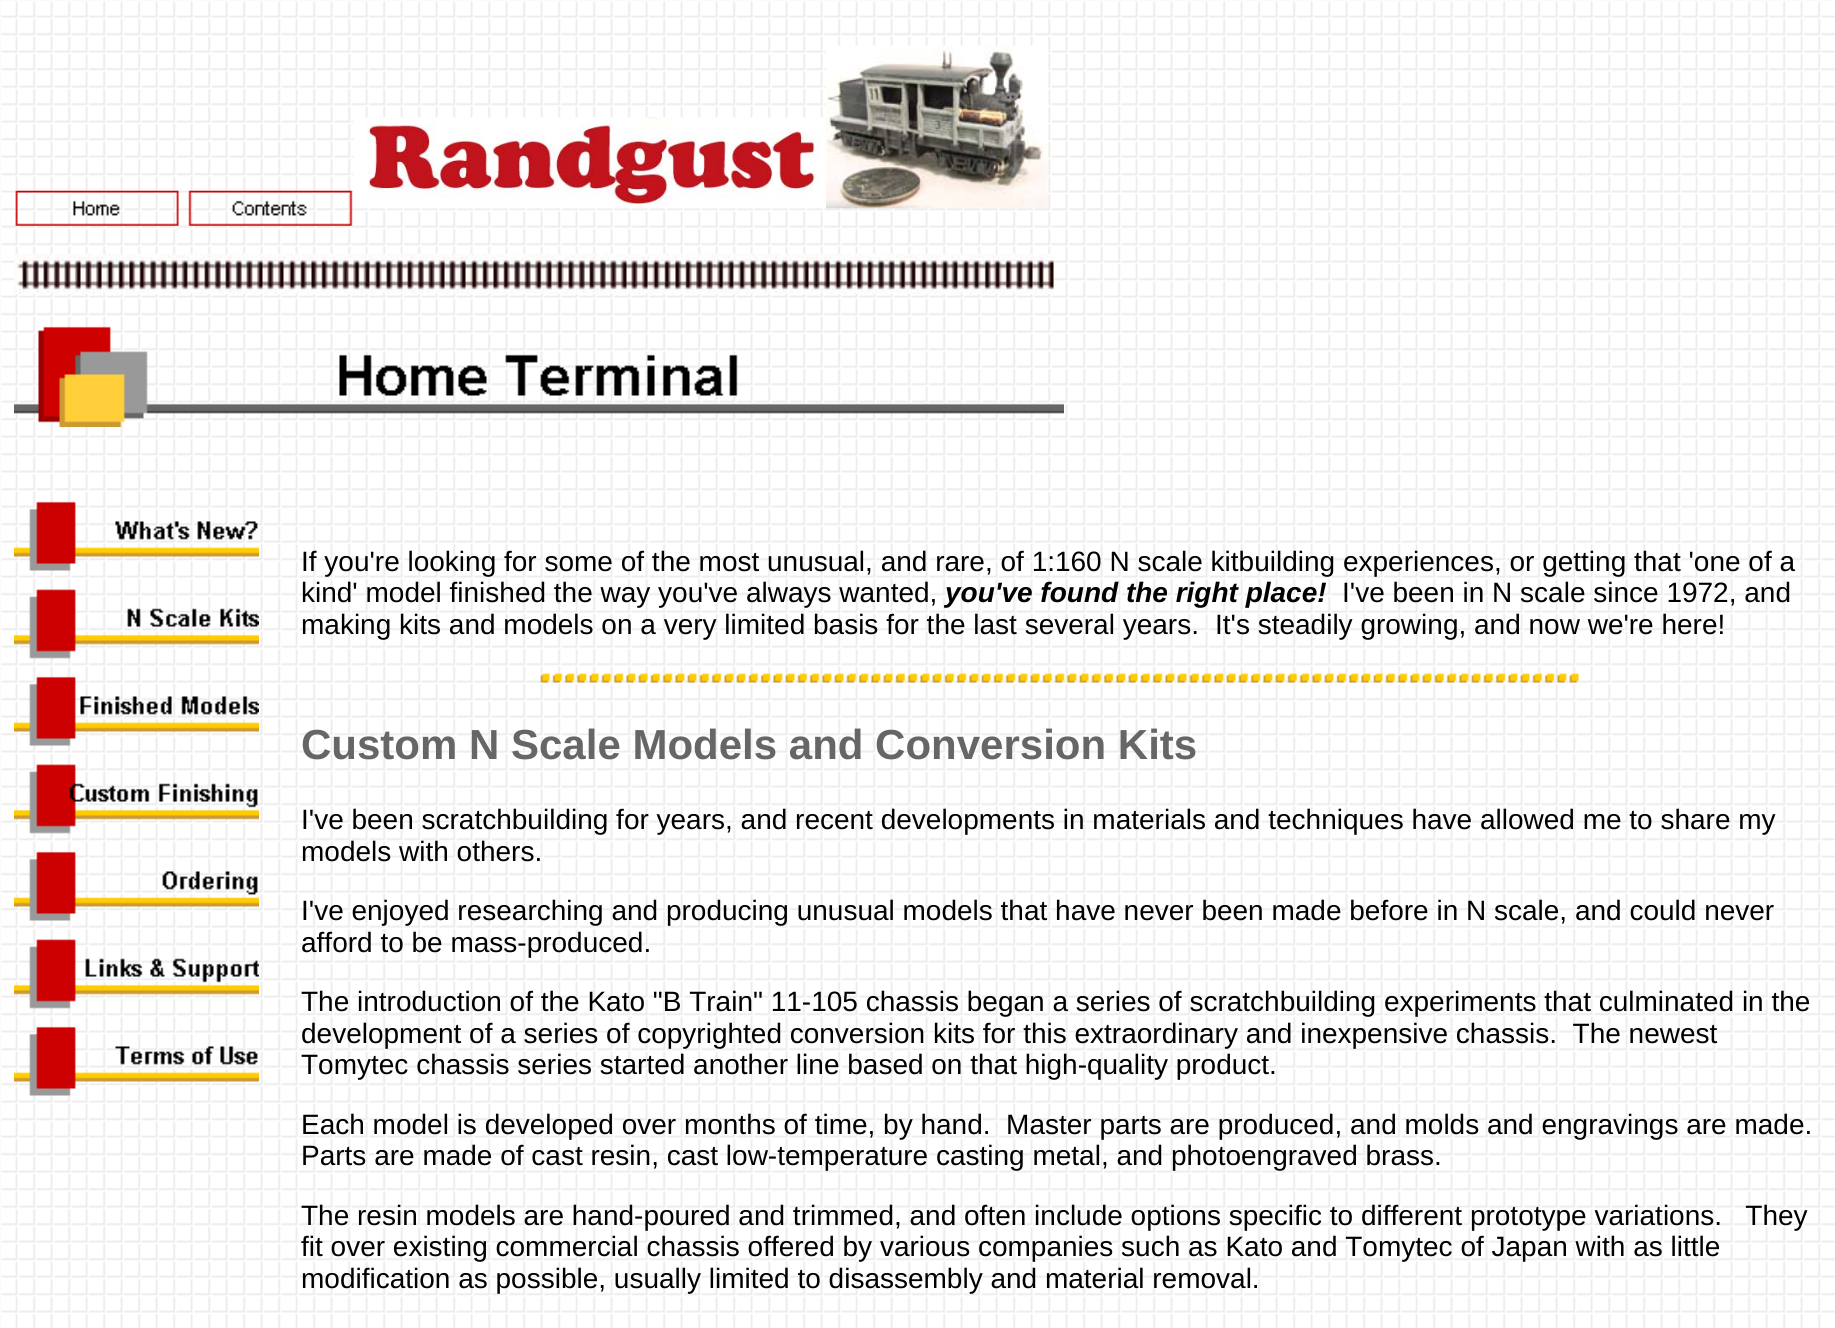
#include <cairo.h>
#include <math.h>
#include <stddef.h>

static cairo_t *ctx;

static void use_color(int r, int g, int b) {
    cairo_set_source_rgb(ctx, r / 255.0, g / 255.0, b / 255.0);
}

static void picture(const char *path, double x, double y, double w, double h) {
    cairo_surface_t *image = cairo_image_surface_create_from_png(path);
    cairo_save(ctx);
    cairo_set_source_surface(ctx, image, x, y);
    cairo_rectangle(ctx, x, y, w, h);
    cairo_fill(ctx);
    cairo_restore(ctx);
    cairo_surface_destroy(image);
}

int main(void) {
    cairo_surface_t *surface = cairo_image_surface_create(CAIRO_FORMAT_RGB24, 1835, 1328);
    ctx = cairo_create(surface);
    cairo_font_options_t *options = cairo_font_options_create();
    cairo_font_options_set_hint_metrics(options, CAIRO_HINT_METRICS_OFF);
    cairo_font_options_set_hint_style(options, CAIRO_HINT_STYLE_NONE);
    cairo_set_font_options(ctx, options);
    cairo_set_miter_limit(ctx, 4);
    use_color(255, 255, 255);
    cairo_paint(ctx);
    picture("img1.png", 0, 0, 1835, 1328);
    picture("img2.png", 15, 190, 164, 36);
    picture("img3.png", 188, 190, 165, 36);
    picture("img4.png", 353, 117, 473, 92);
    picture("img5.png", 826, 45, 223, 164);
    picture("img6.png", 14, 253, 1040, 41);
    picture("img7.png", 14, 326, 1050, 101);
    picture("img8.png", 14, 501, 245, 70);
    picture("img9.png", 14, 589, 245, 70);
    picture("img10.png", 14, 676, 245, 70);
    picture("img11.png", 14, 764, 245, 70);
    picture("img12.png", 14, 851, 245, 70);
    picture("img13.png", 14, 939, 245, 70);
    picture("img14.png", 14, 1026, 245, 70);
    cairo_select_font_face(ctx, "Liberation Sans", CAIRO_FONT_SLANT_NORMAL, CAIRO_FONT_WEIGHT_NORMAL);
    cairo_set_font_size(ctx, 28);
    use_color(0, 0, 0);
    cairo_move_to(ctx, 301, 571);
    cairo_show_text(ctx, "If you're looking for some of the most unusual, and rare, of 1:160 N scale kitbuilding experiences, or getting that 'one of a");
    cairo_move_to(ctx, 301, 602);
    cairo_show_text(ctx, "kind' model finished the way you've always wanted,");
    cairo_select_font_face(ctx, "Liberation Sans", CAIRO_FONT_SLANT_ITALIC, CAIRO_FONT_WEIGHT_BOLD);
    cairo_move_to(ctx, 945, 602);
    cairo_show_text(ctx, "you've found the right place!");
    cairo_select_font_face(ctx, "Liberation Sans", CAIRO_FONT_SLANT_NORMAL, CAIRO_FONT_WEIGHT_NORMAL);
    cairo_move_to(ctx, 1342, 602);
    cairo_show_text(ctx, "I've been in N scale since 1972, and");
    cairo_move_to(ctx, 301, 634);
    cairo_show_text(ctx, "making kits and models on a very limited basis for the last several years.");
    cairo_move_to(ctx, 1215, 634);
    cairo_show_text(ctx, "It's steadily growing, and now we're here!");
    picture("img15.png", 540, 673, 1039, 10);
    cairo_select_font_face(ctx, "Liberation Sans", CAIRO_FONT_SLANT_NORMAL, CAIRO_FONT_WEIGHT_BOLD);
    cairo_set_font_size(ctx, 42);
    use_color(102, 102, 102);
    cairo_move_to(ctx, 301, 759);
    cairo_show_text(ctx, "Custom N Scale Models and Conversion Kits");
    cairo_select_font_face(ctx, "Liberation Sans", CAIRO_FONT_SLANT_NORMAL, CAIRO_FONT_WEIGHT_NORMAL);
    cairo_set_font_size(ctx, 28);
    use_color(0, 0, 0);
    cairo_move_to(ctx, 301, 829);
    cairo_show_text(ctx, "I've been scratchbuilding for years, and recent developments in materials and techniques have allowed me to share my");
    cairo_move_to(ctx, 301, 861);
    cairo_show_text(ctx, "models with others.");
    cairo_move_to(ctx, 301, 920);
    cairo_show_text(ctx, "I've enjoyed researching and producing unusual models that have never been made before in N scale, and could never");
    cairo_move_to(ctx, 301, 952);
    cairo_show_text(ctx, "afford to be mass-produced.");
    cairo_move_to(ctx, 301, 1011);
    cairo_show_text(ctx, "The introduction of the Kato \"B Train\" 11-105 chassis began a series of scratchbuilding experiments that culminated in the");
    cairo_move_to(ctx, 301, 1043);
    cairo_show_text(ctx, "development of a series of copyrighted conversion kits for this extraordinary and inexpensive chassis.  The newest");
    cairo_move_to(ctx, 301, 1074);
    cairo_show_text(ctx, "Tomytec chassis series started another line based on that high-quality product.");
    cairo_move_to(ctx, 301, 1134);
    cairo_show_text(ctx, "Each model is developed over months of time, by hand.  Master parts are produced, and molds and engravings are made.");
    cairo_move_to(ctx, 301, 1165);
    cairo_show_text(ctx, "Parts are made of cast resin, cast low-temperature casting metal, and photoengraved brass.");
    cairo_move_to(ctx, 301, 1225);
    cairo_show_text(ctx, "The resin models are hand-poured and trimmed, and often include options specific to different prototype variations.   They");
    cairo_move_to(ctx, 301, 1256);
    cairo_show_text(ctx, "fit over existing commercial chassis offered by various companies such as Kato and Tomytec of Japan with as little");
    cairo_move_to(ctx, 301, 1288);
    cairo_show_text(ctx, "modification as possible, usually limited to disassembly and material removal.");
    cairo_surface_write_to_png(surface, "result.png");
    cairo_font_options_destroy(options);
    cairo_destroy(ctx);
    cairo_surface_destroy(surface);
    return 0;
}
